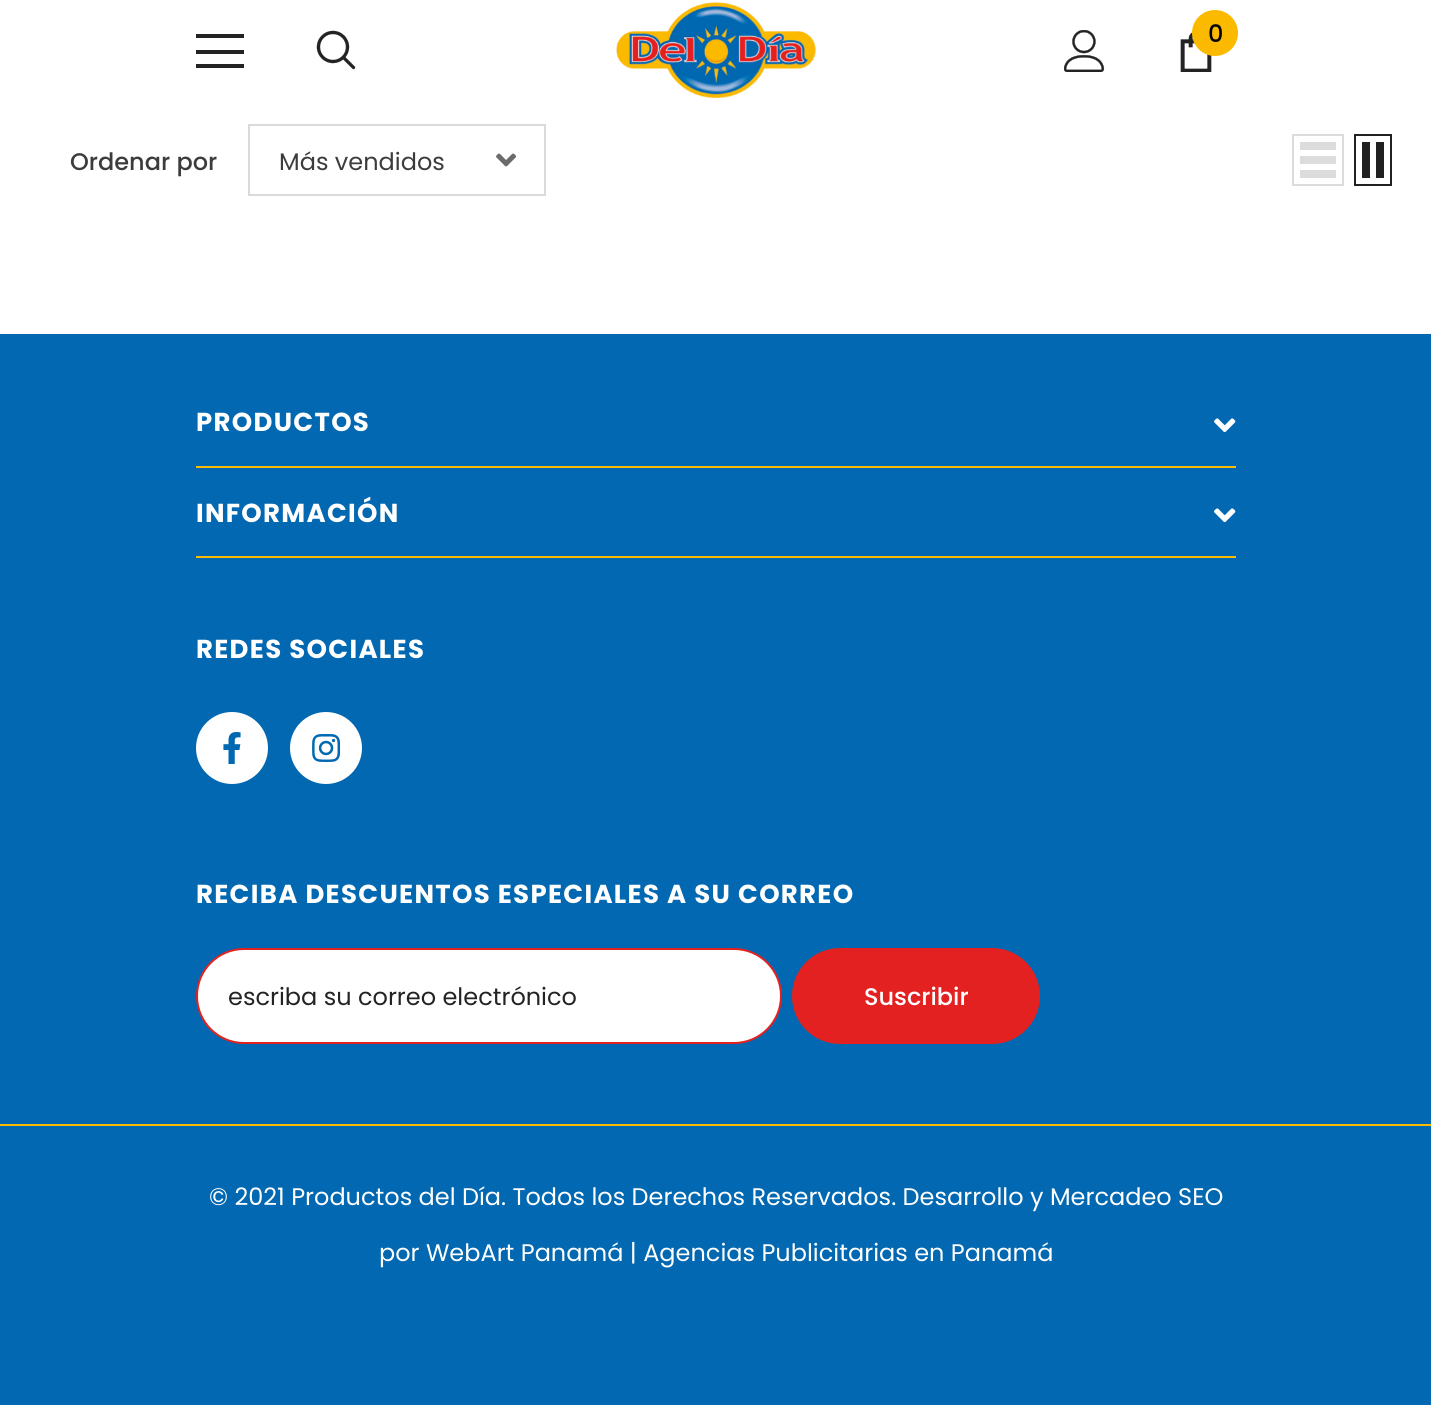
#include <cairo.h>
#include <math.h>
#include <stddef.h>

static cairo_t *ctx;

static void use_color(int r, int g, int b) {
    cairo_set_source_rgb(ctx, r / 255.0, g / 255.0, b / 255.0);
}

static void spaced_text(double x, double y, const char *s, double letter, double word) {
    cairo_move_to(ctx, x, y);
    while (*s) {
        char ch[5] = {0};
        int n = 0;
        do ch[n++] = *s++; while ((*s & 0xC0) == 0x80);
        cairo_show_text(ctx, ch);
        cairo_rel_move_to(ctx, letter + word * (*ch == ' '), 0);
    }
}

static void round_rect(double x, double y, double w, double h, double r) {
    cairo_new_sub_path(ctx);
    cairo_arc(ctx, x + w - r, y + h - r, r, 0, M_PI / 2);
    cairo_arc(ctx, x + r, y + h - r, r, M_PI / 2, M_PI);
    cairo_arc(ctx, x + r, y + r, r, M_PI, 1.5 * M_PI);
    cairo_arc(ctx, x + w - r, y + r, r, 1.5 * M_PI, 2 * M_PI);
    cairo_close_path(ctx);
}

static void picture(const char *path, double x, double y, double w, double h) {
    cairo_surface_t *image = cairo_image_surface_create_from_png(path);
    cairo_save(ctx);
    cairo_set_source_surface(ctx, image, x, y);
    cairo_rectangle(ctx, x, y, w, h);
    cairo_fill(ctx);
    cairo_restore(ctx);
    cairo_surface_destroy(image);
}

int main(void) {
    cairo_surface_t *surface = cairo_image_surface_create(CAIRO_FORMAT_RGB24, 1431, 1405);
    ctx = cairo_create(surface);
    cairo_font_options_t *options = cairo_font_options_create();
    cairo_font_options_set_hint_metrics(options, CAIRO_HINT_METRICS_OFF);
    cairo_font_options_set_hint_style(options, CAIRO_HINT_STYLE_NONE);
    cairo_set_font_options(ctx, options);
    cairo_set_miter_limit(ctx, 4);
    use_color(255, 255, 255);
    cairo_paint(ctx);
    use_color(35, 35, 35);
    cairo_rectangle(ctx, 196, 34, 48, 4);
    cairo_fill(ctx);
    cairo_rectangle(ctx, 196, 50, 48, 4);
    cairo_fill(ctx);
    cairo_rectangle(ctx, 196, 64, 48, 4);
    cairo_fill(ctx);
    picture("img1.png", 316, 30, 40, 40);
    picture("img2.png", 616, 2, 200, 96);
    picture("img3.png", 1064, 30, 41, 42);
    picture("img4.png", 1180, 32, 32, 40);
    use_color(251, 186, 0);
    cairo_arc(ctx, 1215, 33, 23, 0, 2 * M_PI);
    cairo_fill(ctx);
    cairo_select_font_face(ctx, "Poppins Medium", CAIRO_FONT_SLANT_NORMAL, CAIRO_FONT_WEIGHT_NORMAL);
    cairo_set_font_size(ctx, 24);
    use_color(0, 0, 0);
    cairo_move_to(ctx, 1208, 42);
    cairo_show_text(ctx, "0");
    use_color(60, 60, 60);
    cairo_move_to(ctx, 70, 170);
    cairo_show_text(ctx, "Ordenar por");
    cairo_rectangle(ctx, 249, 125, 296, 70);
    use_color(218, 218, 218);
    cairo_stroke(ctx);
    cairo_select_font_face(ctx, "Poppins", CAIRO_FONT_SLANT_NORMAL, CAIRO_FONT_WEIGHT_NORMAL);
    use_color(60, 60, 60);
    cairo_move_to(ctx, 279, 170);
    cairo_show_text(ctx, "Más vendidos");
    picture("img5.png", 496, 153, 20, 14);
    cairo_rectangle(ctx, 1293, 135, 50, 50);
    use_color(220, 220, 220);
    cairo_stroke(ctx);
    cairo_rectangle(ctx, 1300, 170, 36, 8);
    cairo_fill(ctx);
    cairo_rectangle(ctx, 1300, 156, 36, 8);
    cairo_fill(ctx);
    cairo_rectangle(ctx, 1300, 142, 36, 8);
    cairo_fill(ctx);
    cairo_rectangle(ctx, 1355, 135, 36, 50);
    use_color(33, 33, 33);
    cairo_stroke(ctx);
    cairo_rectangle(ctx, 1376, 142, 8, 36);
    cairo_fill(ctx);
    cairo_rectangle(ctx, 1362, 142, 8, 36);
    cairo_fill(ctx);
    use_color(1, 104, 177);
    cairo_rectangle(ctx, 0, 334, 1431, 1071);
    cairo_fill(ctx);
    use_color(251, 186, 0);
    cairo_rectangle(ctx, 196, 466, 1040, 2);
    cairo_fill(ctx);
    cairo_select_font_face(ctx, "Poppins", CAIRO_FONT_SLANT_NORMAL, CAIRO_FONT_WEIGHT_BOLD);
    cairo_set_font_size(ctx, 26);
    use_color(255, 255, 255);
    spaced_text(196, 431, "PRODUCTOS", 1.3, 0);
    picture("img6.png", 1214, 418, 22, 15);
    use_color(251, 186, 0);
    cairo_rectangle(ctx, 196, 556, 1040, 2);
    cairo_fill(ctx);
    use_color(255, 255, 255);
    spaced_text(196, 522, "INFORMACIÓN", 1.3, 0);
    picture("img6.png", 1214, 508, 22, 15);
    spaced_text(196, 658, "REDES SOCIALES", 1.3, 0);
    cairo_new_path(ctx);
    cairo_arc(ctx, 232, 748, 36, 0, 2 * M_PI);
    cairo_fill(ctx);
    picture("img7.png", 223, 732, 18, 32);
    cairo_arc(ctx, 326, 748, 36, 0, 2 * M_PI);
    cairo_fill(ctx);
    picture("img8.png", 312, 734, 29, 28);
    spaced_text(196, 903, "RECIBA DESCUENTOS ESPECIALES A SU CORREO", 1.3, 0);
    round_rect(197, 949, 584, 94, 47);
    cairo_fill_preserve(ctx);
    use_color(228, 33, 33);
    cairo_stroke(ctx);
    cairo_select_font_face(ctx, "Poppins", CAIRO_FONT_SLANT_NORMAL, CAIRO_FONT_WEIGHT_NORMAL);
    cairo_set_font_size(ctx, 24);
    use_color(35, 35, 35);
    cairo_move_to(ctx, 228, 1005);
    cairo_show_text(ctx, "escriba su correo electrónico");
    use_color(228, 33, 33);
    round_rect(793, 949, 246, 94, 47);
    cairo_fill_preserve(ctx);
    cairo_stroke(ctx);
    cairo_select_font_face(ctx, "Poppins Medium", CAIRO_FONT_SLANT_NORMAL, CAIRO_FONT_WEIGHT_NORMAL);
    use_color(255, 255, 255);
    cairo_move_to(ctx, 864, 1005);
    cairo_show_text(ctx, "Suscribir");
    use_color(251, 186, 0);
    cairo_rectangle(ctx, 0, 1124, 1431, 2);
    cairo_fill(ctx);
    cairo_select_font_face(ctx, "Poppins", CAIRO_FONT_SLANT_NORMAL, CAIRO_FONT_WEIGHT_NORMAL);
    use_color(255, 255, 255);
    cairo_move_to(ctx, 209, 1205);
    cairo_show_text(ctx, "© 2021 Productos del Día. Todos los Derechos Reservados. Desarrollo y Mercadeo SEO");
    cairo_move_to(ctx, 379, 1261);
    cairo_show_text(ctx, "por WebArt Panamá | Agencias Publicitarias en Panamá");
    cairo_surface_write_to_png(surface, "result.png");
    cairo_font_options_destroy(options);
    cairo_destroy(ctx);
    cairo_surface_destroy(surface);
    return 0;
}
